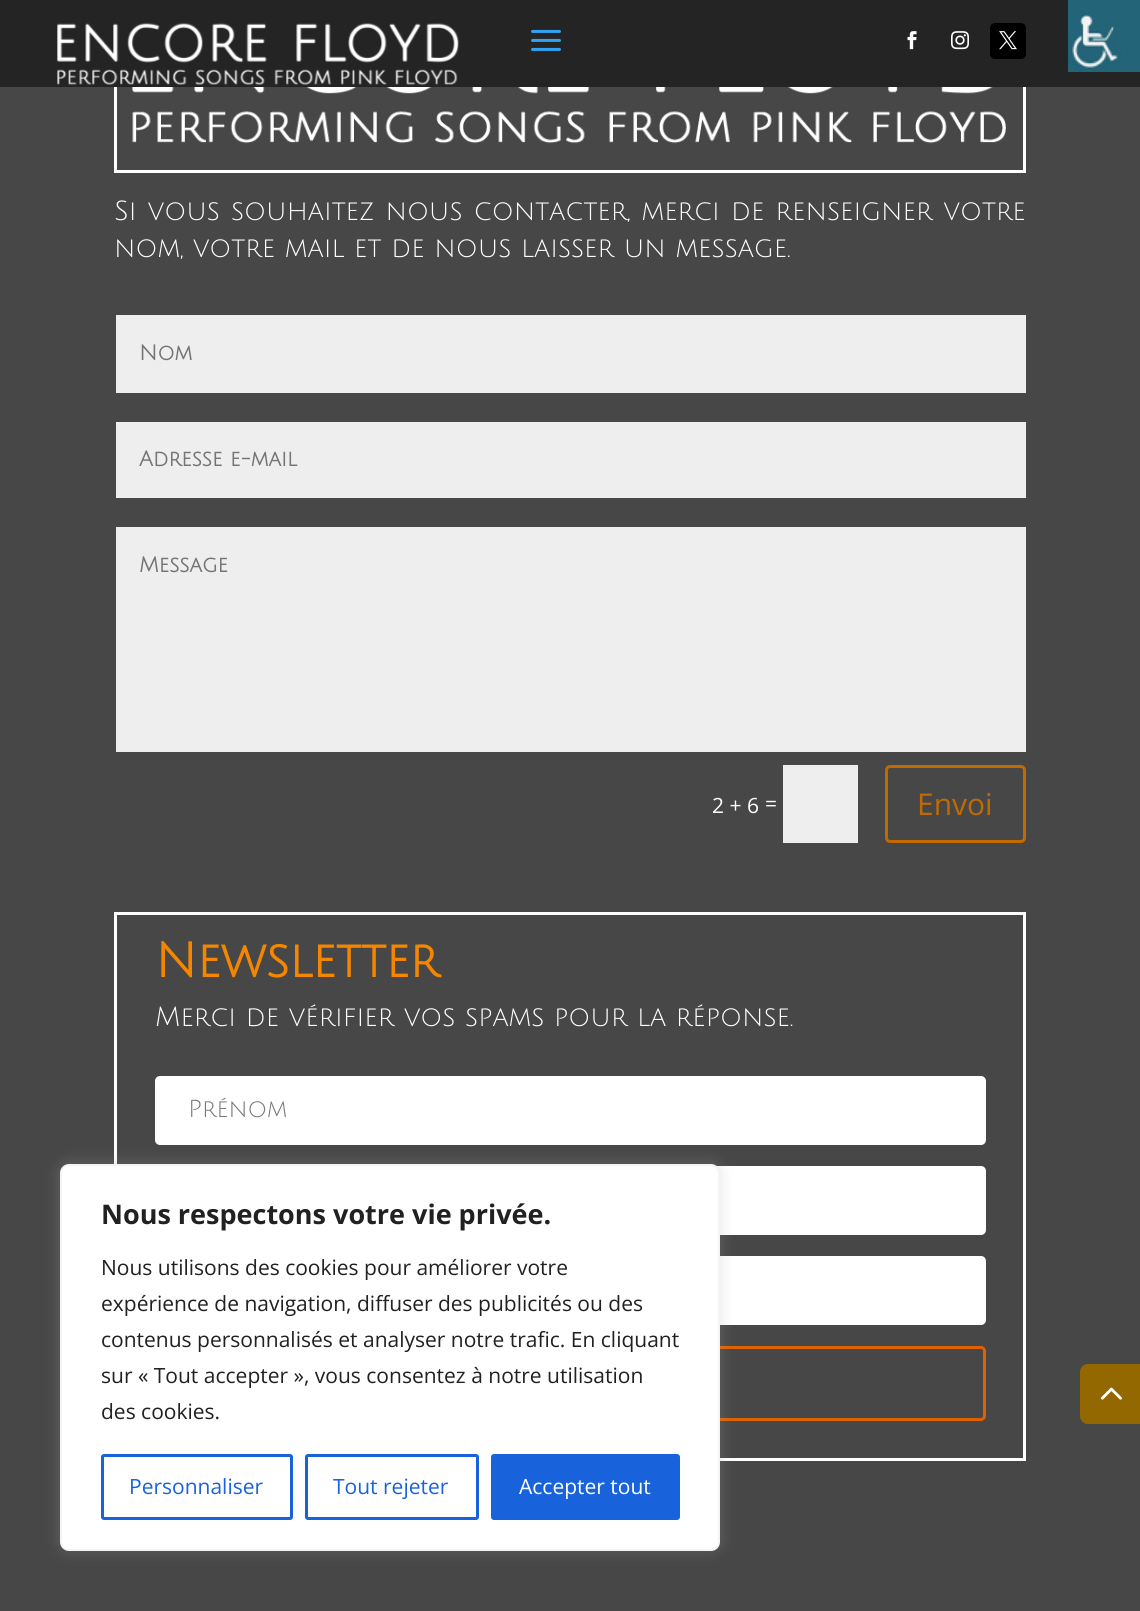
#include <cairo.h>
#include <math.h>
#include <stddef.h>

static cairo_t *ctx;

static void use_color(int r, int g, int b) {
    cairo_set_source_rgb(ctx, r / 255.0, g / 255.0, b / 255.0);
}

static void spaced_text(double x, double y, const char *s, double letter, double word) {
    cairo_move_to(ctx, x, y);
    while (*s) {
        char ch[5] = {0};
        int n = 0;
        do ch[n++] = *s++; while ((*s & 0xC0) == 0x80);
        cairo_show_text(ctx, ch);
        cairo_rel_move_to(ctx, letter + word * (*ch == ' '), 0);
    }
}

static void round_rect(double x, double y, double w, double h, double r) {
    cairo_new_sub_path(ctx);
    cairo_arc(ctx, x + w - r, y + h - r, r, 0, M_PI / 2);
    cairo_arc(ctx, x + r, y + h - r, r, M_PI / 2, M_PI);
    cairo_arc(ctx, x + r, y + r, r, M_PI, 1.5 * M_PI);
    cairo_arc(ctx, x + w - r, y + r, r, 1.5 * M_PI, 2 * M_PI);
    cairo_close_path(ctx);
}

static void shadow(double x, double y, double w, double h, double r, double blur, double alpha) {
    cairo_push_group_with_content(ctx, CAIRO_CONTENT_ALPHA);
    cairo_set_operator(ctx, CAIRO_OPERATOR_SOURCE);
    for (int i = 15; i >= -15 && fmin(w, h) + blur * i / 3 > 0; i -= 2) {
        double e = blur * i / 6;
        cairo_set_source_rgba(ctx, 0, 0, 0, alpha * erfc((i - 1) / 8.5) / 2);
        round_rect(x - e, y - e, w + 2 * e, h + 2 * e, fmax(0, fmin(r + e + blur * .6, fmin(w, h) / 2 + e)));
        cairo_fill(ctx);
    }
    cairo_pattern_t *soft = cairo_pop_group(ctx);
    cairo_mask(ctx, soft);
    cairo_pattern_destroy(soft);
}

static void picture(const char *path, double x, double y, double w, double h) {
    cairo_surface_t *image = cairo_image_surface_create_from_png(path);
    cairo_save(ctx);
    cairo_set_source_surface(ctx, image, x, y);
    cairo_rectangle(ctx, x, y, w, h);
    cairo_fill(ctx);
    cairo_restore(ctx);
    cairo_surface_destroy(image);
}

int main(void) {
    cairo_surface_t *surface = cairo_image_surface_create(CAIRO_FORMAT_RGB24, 1140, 1611);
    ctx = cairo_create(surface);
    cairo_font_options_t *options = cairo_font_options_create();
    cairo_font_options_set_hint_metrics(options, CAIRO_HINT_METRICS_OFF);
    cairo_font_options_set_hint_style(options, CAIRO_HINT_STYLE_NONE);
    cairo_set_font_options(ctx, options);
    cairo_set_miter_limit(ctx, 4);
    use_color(71, 71, 71);
    cairo_paint(ctx);
    cairo_rectangle(ctx, 115.5, -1.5, 909, 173);
    use_color(255, 255, 255);
    cairo_set_line_width(ctx, 3);
    cairo_stroke(ctx);
    use_color(36, 36, 36);
    cairo_rectangle(ctx, 0, 0, 1140, 87);
    cairo_fill(ctx);
    picture("img1.png", 1068, 0, 72, 72);
    picture("img2.png", 57, 22, 402, 63);
    picture("img3.png", 531, 29, 30, 22);
    picture("img4.png", 907, 31, 10, 19);
    picture("img5.png", 951, 31, 18, 19);
    use_color(0, 0, 0);
    round_rect(990, 23, 36, 36, 5);
    cairo_fill(ctx);
    picture("img6.png", 999, 31, 18, 19);
    picture("img7.png", 132, 87, 874, 57);
    cairo_select_font_face(ctx, "Julius Sans One", CAIRO_FONT_SLANT_NORMAL, CAIRO_FONT_WEIGHT_NORMAL);
    cairo_set_font_size(ctx, 27);
    use_color(255, 255, 255);
    spaced_text(114, 220, "Si vous souhaitez nous contacter, merci de renseigner votre", 0, 1.5);
    cairo_move_to(ctx, 114, 257);
    cairo_show_text(ctx, "nom, votre mail et de nous laisser un message.");
    use_color(238, 238, 238);
    cairo_rectangle(ctx, 116, 315, 910, 78);
    cairo_fill(ctx);
    cairo_select_font_face(ctx, "Julius Sans One", CAIRO_FONT_SLANT_NORMAL, CAIRO_FONT_WEIGHT_BOLD);
    cairo_set_font_size(ctx, 21);
    use_color(117, 117, 117);
    cairo_move_to(ctx, 139, 360);
    cairo_show_text(ctx, "Nom");
    use_color(238, 238, 238);
    cairo_rectangle(ctx, 116, 422, 910, 76);
    cairo_fill(ctx);
    use_color(117, 117, 117);
    cairo_move_to(ctx, 139, 466);
    cairo_show_text(ctx, "Adresse e-mail");
    use_color(238, 238, 238);
    cairo_rectangle(ctx, 116, 527, 910, 225);
    cairo_fill(ctx);
    use_color(117, 117, 117);
    cairo_move_to(ctx, 139, 572);
    cairo_show_text(ctx, "Message");
    cairo_select_font_face(ctx, "Open Sans", CAIRO_FONT_SLANT_NORMAL, CAIRO_FONT_WEIGHT_NORMAL);
    use_color(255, 255, 255);
    cairo_move_to(ctx, 712, 813);
    cairo_show_text(ctx, "2 + 6");
    cairo_move_to(ctx, 765, 811);
    cairo_show_text(ctx, "=");
    use_color(238, 238, 238);
    cairo_rectangle(ctx, 783, 765, 75, 78);
    cairo_fill(ctx);
    round_rect(886.5, 766.5, 138, 75, 3.5);
    use_color(193, 106, 0);
    cairo_stroke(ctx);
    cairo_set_font_size(ctx, 30);
    cairo_move_to(ctx, 917, 815);
    cairo_show_text(ctx, "Envoi");
    cairo_rectangle(ctx, 115.5, 913.5, 909, 546);
    use_color(255, 255, 255);
    cairo_stroke(ctx);
    cairo_select_font_face(ctx, "Julius Sans One", CAIRO_FONT_SLANT_NORMAL, CAIRO_FONT_WEIGHT_BOLD);
    cairo_set_font_size(ctx, 48);
    use_color(244, 134, 0);
    cairo_move_to(ctx, 155, 977);
    cairo_show_text(ctx, "Newsletter");
    cairo_select_font_face(ctx, "Julius Sans One", CAIRO_FONT_SLANT_NORMAL, CAIRO_FONT_WEIGHT_NORMAL);
    cairo_set_font_size(ctx, 27);
    use_color(255, 255, 255);
    cairo_move_to(ctx, 155, 1026);
    cairo_show_text(ctx, "Merci de vérifier vos spams pour la réponse.");
    round_rect(155, 1076, 831, 69, 5);
    cairo_fill(ctx);
    cairo_set_font_size(ctx, 24);
    use_color(117, 117, 117);
    cairo_move_to(ctx, 188, 1117);
    cairo_show_text(ctx, "Prénom");
    use_color(255, 255, 255);
    round_rect(155, 1166, 831, 69, 5);
    cairo_fill(ctx);
    round_rect(155, 1256, 831, 69, 5);
    cairo_fill(ctx);
    round_rect(156.5, 1347.5, 828, 72, 3.5);
    use_color(224, 97, 0);
    cairo_stroke(ctx);
    use_color(172, 171, 171);
    shadow(60, 1163, 660, 387, 9, 7.5, 0.3);
    use_color(255, 255, 255);
    round_rect(61, 1165, 658, 385, 8);
    cairo_fill_preserve(ctx);
    use_color(244, 244, 244);
    cairo_set_line_width(ctx, 2);
    cairo_stroke(ctx);
    cairo_select_font_face(ctx, "Open Sans", CAIRO_FONT_SLANT_NORMAL, CAIRO_FONT_WEIGHT_BOLD);
    cairo_set_font_size(ctx, 27);
    use_color(33, 33, 33);
    cairo_move_to(ctx, 101, 1224);
    cairo_show_text(ctx, "Nous respectons votre vie privée.");
    cairo_select_font_face(ctx, "Open Sans", CAIRO_FONT_SLANT_NORMAL, CAIRO_FONT_WEIGHT_NORMAL);
    cairo_set_font_size(ctx, 21);
    cairo_move_to(ctx, 101, 1275);
    cairo_show_text(ctx, "Nous utilisons des cookies pour améliorer votre");
    cairo_move_to(ctx, 101, 1311);
    cairo_show_text(ctx, "expérience de navigation, diffuser des publicités ou des");
    cairo_move_to(ctx, 101, 1347);
    cairo_show_text(ctx, "contenus personnalisés et analyser notre trafic. En cliquant");
    cairo_move_to(ctx, 101, 1383);
    cairo_show_text(ctx, "sur « Tout accepter », vous consentez à notre utilisation");
    cairo_move_to(ctx, 101, 1419);
    cairo_show_text(ctx, "des cookies.");
    round_rect(102.5, 1455.5, 189, 63, 1.5);
    use_color(24, 99, 220);
    cairo_set_line_width(ctx, 3);
    cairo_stroke(ctx);
    cairo_move_to(ctx, 129, 1494);
    cairo_show_text(ctx, "Personnaliser");
    round_rect(306.5, 1455.5, 171, 63, 1.5);
    cairo_stroke(ctx);
    cairo_move_to(ctx, 333, 1494);
    cairo_show_text(ctx, "Tout rejeter");
    round_rect(492.5, 1455.5, 186, 63, 1.5);
    cairo_fill_preserve(ctx);
    cairo_stroke(ctx);
    use_color(255, 255, 255);
    cairo_move_to(ctx, 519, 1494);
    cairo_show_text(ctx, "Accepter tout");
    use_color(148, 104, 0);
    cairo_new_path(ctx);
    cairo_move_to(ctx, 1088, 1364);
    cairo_line_to(ctx, 1140, 1364);
    cairo_line_to(ctx, 1140, 1424);
    cairo_line_to(ctx, 1088, 1424);
    cairo_curve_to(ctx, 1083.5, 1424, 1080, 1420.5, 1080, 1416);
    cairo_line_to(ctx, 1080, 1372);
    cairo_curve_to(ctx, 1080, 1367.5, 1083.5, 1364, 1088, 1364);
    cairo_close_path(ctx);
    cairo_fill(ctx);
    picture("img8.png", 1100, 1387, 22, 13);
    cairo_surface_write_to_png(surface, "result.png");
    cairo_font_options_destroy(options);
    cairo_destroy(ctx);
    cairo_surface_destroy(surface);
    return 0;
}
